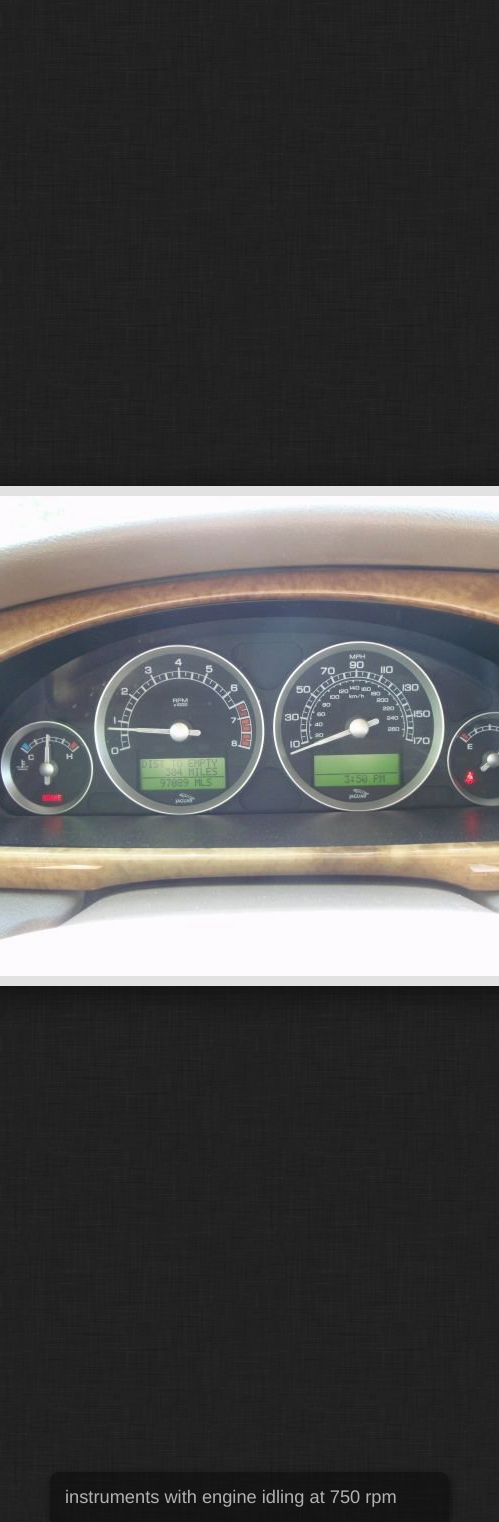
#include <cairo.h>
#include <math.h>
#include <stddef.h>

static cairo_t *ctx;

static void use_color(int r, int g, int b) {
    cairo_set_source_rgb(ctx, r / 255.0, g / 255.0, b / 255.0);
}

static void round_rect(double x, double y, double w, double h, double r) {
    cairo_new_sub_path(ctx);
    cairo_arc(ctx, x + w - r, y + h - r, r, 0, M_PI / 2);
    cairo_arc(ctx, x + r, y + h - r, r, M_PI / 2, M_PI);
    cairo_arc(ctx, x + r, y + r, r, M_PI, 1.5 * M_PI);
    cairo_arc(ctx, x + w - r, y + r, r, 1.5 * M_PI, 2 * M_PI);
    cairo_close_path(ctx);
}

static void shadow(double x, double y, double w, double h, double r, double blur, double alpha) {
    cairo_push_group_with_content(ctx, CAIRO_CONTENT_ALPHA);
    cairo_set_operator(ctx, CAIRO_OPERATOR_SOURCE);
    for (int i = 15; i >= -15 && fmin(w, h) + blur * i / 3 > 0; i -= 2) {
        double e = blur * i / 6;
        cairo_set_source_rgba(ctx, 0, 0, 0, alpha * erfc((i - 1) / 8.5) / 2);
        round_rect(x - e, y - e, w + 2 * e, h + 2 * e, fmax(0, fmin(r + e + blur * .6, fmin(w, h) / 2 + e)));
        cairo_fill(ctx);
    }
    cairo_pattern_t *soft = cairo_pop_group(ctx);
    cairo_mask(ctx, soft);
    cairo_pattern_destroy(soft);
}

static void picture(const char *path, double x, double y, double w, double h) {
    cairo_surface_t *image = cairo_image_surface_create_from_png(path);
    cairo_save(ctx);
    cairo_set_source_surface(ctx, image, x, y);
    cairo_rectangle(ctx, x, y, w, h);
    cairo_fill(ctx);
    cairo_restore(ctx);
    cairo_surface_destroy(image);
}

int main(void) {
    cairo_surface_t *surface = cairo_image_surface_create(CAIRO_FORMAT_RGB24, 499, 1522);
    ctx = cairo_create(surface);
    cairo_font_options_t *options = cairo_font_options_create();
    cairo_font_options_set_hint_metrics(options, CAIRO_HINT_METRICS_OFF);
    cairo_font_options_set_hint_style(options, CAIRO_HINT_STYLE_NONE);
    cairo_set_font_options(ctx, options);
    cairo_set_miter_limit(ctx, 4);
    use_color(34, 34, 34);
    cairo_paint(ctx);
    picture("img1.png", 0, 0, 499, 1522);
    cairo_save(ctx);
    cairo_set_fill_rule(ctx, CAIRO_FILL_RULE_EVEN_ODD);
    cairo_new_path(ctx);
    cairo_move_to(ctx, 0, 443);
    cairo_line_to(ctx, 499, 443);
    cairo_line_to(ctx, 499, 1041);
    cairo_line_to(ctx, 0, 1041);
    cairo_close_path(ctx);
    cairo_move_to(ctx, -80, 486);
    cairo_line_to(ctx, 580, 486);
    cairo_line_to(ctx, 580, 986);
    cairo_line_to(ctx, -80, 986);
    cairo_close_path(ctx);
    cairo_clip(ctx);
    use_color(0, 0, 0);
    shadow(-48, 492, 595, 500, 0, 16, 0.57);
    cairo_restore(ctx);
    cairo_set_source_rgba(ctx, 0.933, 0.933, 0.933, 0.94);
    cairo_rectangle(ctx, 0, 486, 499, 500);
    cairo_fill(ctx);
    picture("img2.png", 0, 496, 499, 480);
    cairo_save(ctx);
    cairo_set_fill_rule(ctx, CAIRO_FILL_RULE_EVEN_ODD);
    cairo_new_path(ctx);
    cairo_move_to(ctx, 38, 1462);
    cairo_line_to(ctx, 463, 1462);
    cairo_line_to(ctx, 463, 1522);
    cairo_line_to(ctx, 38, 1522);
    cairo_close_path(ctx);
    cairo_move_to(ctx, 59, 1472);
    cairo_line_to(ctx, 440, 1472);
    cairo_curve_to(ctx, 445, 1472, 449, 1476, 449, 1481);
    cairo_line_to(ctx, 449, 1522);
    cairo_line_to(ctx, 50, 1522);
    cairo_line_to(ctx, 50, 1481);
    cairo_curve_to(ctx, 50, 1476, 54, 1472, 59, 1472);
    cairo_close_path(ctx);
    cairo_clip(ctx);
    use_color(0, 0, 0);
    shadow(51, 1475, 399, 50, 9, 4, 0.57);
    cairo_restore(ctx);
    cairo_set_source_rgba(ctx, 0, 0, 0, 0.38);
    cairo_new_path(ctx);
    cairo_move_to(ctx, 59, 1472);
    cairo_line_to(ctx, 440, 1472);
    cairo_curve_to(ctx, 445, 1472, 449, 1476, 449, 1481);
    cairo_line_to(ctx, 449, 1522);
    cairo_line_to(ctx, 50, 1522);
    cairo_line_to(ctx, 50, 1481);
    cairo_curve_to(ctx, 50, 1476, 54, 1472, 59, 1472);
    cairo_close_path(ctx);
    cairo_fill(ctx);
    cairo_select_font_face(ctx, "Liberation Sans", CAIRO_FONT_SLANT_NORMAL, CAIRO_FONT_WEIGHT_NORMAL);
    cairo_set_font_size(ctx, 18.25);
    use_color(177, 177, 177);
    cairo_move_to(ctx, 65, 1503);
    cairo_show_text(ctx, "instruments with engine idling at 750 rpm");
    cairo_surface_write_to_png(surface, "result.png");
    cairo_font_options_destroy(options);
    cairo_destroy(ctx);
    cairo_surface_destroy(surface);
    return 0;
}
